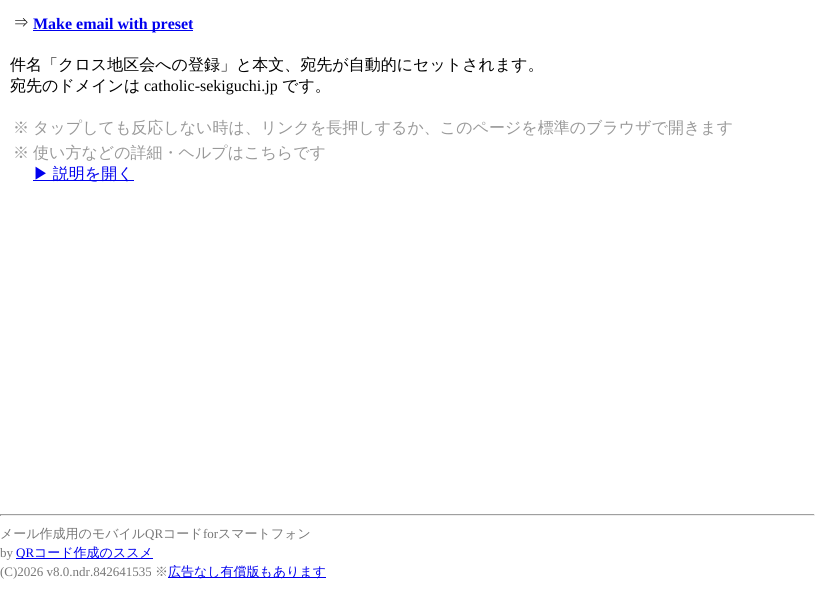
#include <cairo.h>
#include <math.h>
#include <stddef.h>

static cairo_t *ctx;

static void use_color(int r, int g, int b) {
    cairo_set_source_rgb(ctx, r / 255.0, g / 255.0, b / 255.0);
}

static void spaced_text(double x, double y, const char *s, double letter, double word) {
    cairo_move_to(ctx, x, y);
    while (*s) {
        char ch[5] = {0};
        int n = 0;
        do ch[n++] = *s++; while ((*s & 0xC0) == 0x80);
        cairo_show_text(ctx, ch);
        cairo_rel_move_to(ctx, letter + word * (*ch == ' '), 0);
    }
}

int main(void) {
    cairo_surface_t *surface = cairo_image_surface_create(CAIRO_FORMAT_RGB24, 815, 599);
    ctx = cairo_create(surface);
    cairo_font_options_t *options = cairo_font_options_create();
    cairo_font_options_set_hint_metrics(options, CAIRO_HINT_METRICS_OFF);
    cairo_font_options_set_hint_style(options, CAIRO_HINT_STYLE_NONE);
    cairo_set_font_options(ctx, options);
    cairo_set_miter_limit(ctx, 4);
    use_color(255, 255, 255);
    cairo_paint(ctx);
    cairo_select_font_face(ctx, "WenQuanYi Zen Hei Medium", CAIRO_FONT_SLANT_NORMAL, CAIRO_FONT_WEIGHT_NORMAL);
    cairo_set_font_size(ctx, 16);
    use_color(0, 0, 0);
    cairo_move_to(ctx, 13, 28);
    cairo_show_text(ctx, "⇒");
    use_color(0, 0, 238);
    cairo_rectangle(ctx, 33, 30, 160, 1);
    cairo_fill(ctx);
    cairo_select_font_face(ctx, "Liberation Serif", CAIRO_FONT_SLANT_NORMAL, CAIRO_FONT_WEIGHT_BOLD);
    cairo_move_to(ctx, 33, 29);
    cairo_show_text(ctx, "Make email with preset");
    cairo_select_font_face(ctx, "WenQuanYi Zen Hei Medium", CAIRO_FONT_SLANT_NORMAL, CAIRO_FONT_WEIGHT_NORMAL);
    use_color(0, 0, 0);
    cairo_move_to(ctx, 10, 70);
    cairo_show_text(ctx, "件名「クロス地区会への登録」と本文、宛先が自動的にセットされます。");
    cairo_move_to(ctx, 10, 91);
    cairo_show_text(ctx, "宛先のドメインは");
    cairo_select_font_face(ctx, "Liberation Serif", CAIRO_FONT_SLANT_NORMAL, CAIRO_FONT_WEIGHT_NORMAL);
    cairo_move_to(ctx, 144, 91);
    cairo_show_text(ctx, "catholic-sekiguchi.jp");
    cairo_select_font_face(ctx, "WenQuanYi Zen Hei Medium", CAIRO_FONT_SLANT_NORMAL, CAIRO_FONT_WEIGHT_NORMAL);
    cairo_move_to(ctx, 282, 91);
    cairo_show_text(ctx, "です。");
    use_color(153, 153, 153);
    cairo_move_to(ctx, 13, 133);
    cairo_show_text(ctx, "※");
    cairo_move_to(ctx, 33, 133);
    cairo_show_text(ctx, "タップしても反応しない時は、リンクを長押しするか、このページを標準のブラウザで開きます");
    cairo_move_to(ctx, 13, 158);
    cairo_show_text(ctx, "※");
    cairo_move_to(ctx, 33, 158);
    cairo_show_text(ctx, "使い方などの詳細・ヘルプはこちらです");
    use_color(0, 0, 238);
    cairo_rectangle(ctx, 33, 180, 101, 1);
    cairo_fill(ctx);
    spaced_text(33, 179, "▶ 説明を開く", 0, -1);
    use_color(159, 159, 159);
    cairo_rectangle(ctx, 0, 514, 815, 1);
    cairo_fill(ctx);
    use_color(238, 238, 238);
    cairo_rectangle(ctx, 814, 514, 1, 2);
    cairo_fill(ctx);
    cairo_rectangle(ctx, 0, 515, 815, 1);
    cairo_fill(ctx);
    use_color(159, 159, 159);
    cairo_rectangle(ctx, 0, 514, 1, 2);
    cairo_fill(ctx);
    cairo_set_font_size(ctx, 13);
    use_color(119, 119, 119);
    cairo_move_to(ctx, 0, 538);
    cairo_show_text(ctx, "メール作成用のモバイル");
    cairo_select_font_face(ctx, "Liberation Serif", CAIRO_FONT_SLANT_NORMAL, CAIRO_FONT_WEIGHT_NORMAL);
    cairo_move_to(ctx, 145, 538);
    cairo_show_text(ctx, "QR");
    cairo_select_font_face(ctx, "WenQuanYi Zen Hei Medium", CAIRO_FONT_SLANT_NORMAL, CAIRO_FONT_WEIGHT_NORMAL);
    cairo_move_to(ctx, 163, 538);
    cairo_show_text(ctx, "コード");
    cairo_select_font_face(ctx, "Liberation Serif", CAIRO_FONT_SLANT_NORMAL, CAIRO_FONT_WEIGHT_NORMAL);
    cairo_move_to(ctx, 203, 538);
    cairo_show_text(ctx, "for");
    cairo_select_font_face(ctx, "WenQuanYi Zen Hei Medium", CAIRO_FONT_SLANT_NORMAL, CAIRO_FONT_WEIGHT_NORMAL);
    cairo_move_to(ctx, 218, 538);
    cairo_show_text(ctx, "スマートフォン");
    cairo_select_font_face(ctx, "Liberation Serif", CAIRO_FONT_SLANT_NORMAL, CAIRO_FONT_WEIGHT_NORMAL);
    cairo_move_to(ctx, 0, 557);
    cairo_show_text(ctx, "by");
    use_color(0, 0, 238);
    cairo_rectangle(ctx, 16, 558, 137, 1);
    cairo_fill(ctx);
    cairo_move_to(ctx, 16, 557);
    cairo_show_text(ctx, "QR");
    cairo_select_font_face(ctx, "WenQuanYi Zen Hei Medium", CAIRO_FONT_SLANT_NORMAL, CAIRO_FONT_WEIGHT_NORMAL);
    cairo_move_to(ctx, 34, 557);
    cairo_show_text(ctx, "コード作成のススメ");
    cairo_select_font_face(ctx, "Liberation Serif", CAIRO_FONT_SLANT_NORMAL, CAIRO_FONT_WEIGHT_NORMAL);
    use_color(119, 119, 119);
    cairo_move_to(ctx, 0, 576);
    cairo_show_text(ctx, "(C)2026 v8.0.ndr.842641535");
    cairo_select_font_face(ctx, "WenQuanYi Zen Hei Medium", CAIRO_FONT_SLANT_NORMAL, CAIRO_FONT_WEIGHT_NORMAL);
    cairo_move_to(ctx, 155, 576);
    cairo_show_text(ctx, "※");
    use_color(0, 0, 238);
    cairo_rectangle(ctx, 168, 577, 158, 1);
    cairo_fill(ctx);
    cairo_move_to(ctx, 168, 576);
    cairo_show_text(ctx, "広告なし有償版もあります");
    cairo_surface_write_to_png(surface, "result.png");
    cairo_font_options_destroy(options);
    cairo_destroy(ctx);
    cairo_surface_destroy(surface);
    return 0;
}
